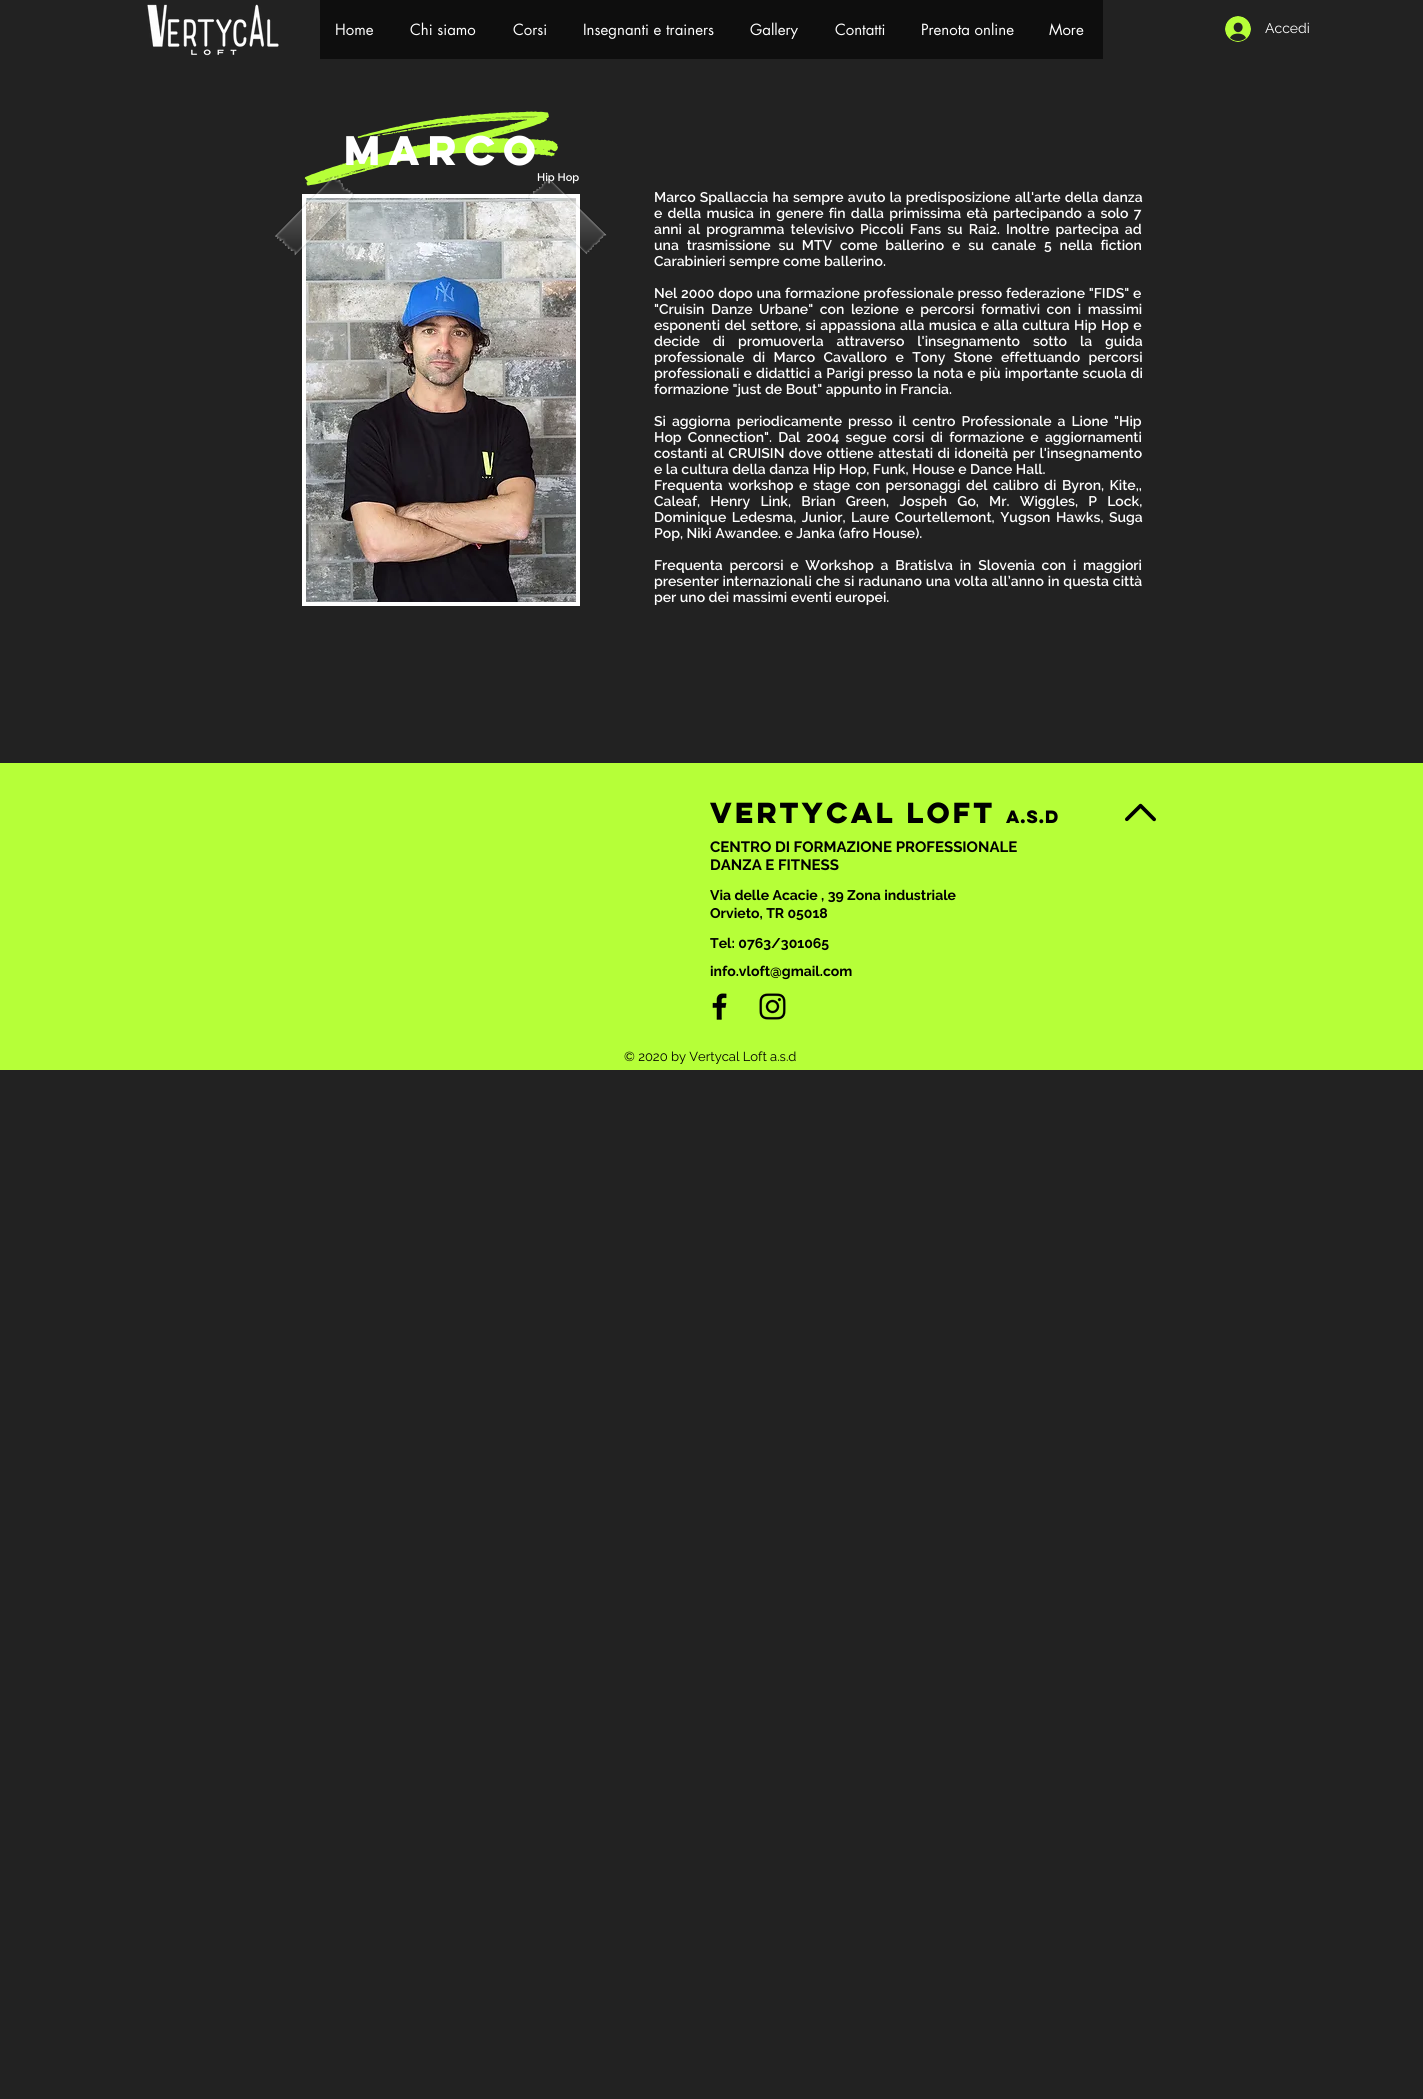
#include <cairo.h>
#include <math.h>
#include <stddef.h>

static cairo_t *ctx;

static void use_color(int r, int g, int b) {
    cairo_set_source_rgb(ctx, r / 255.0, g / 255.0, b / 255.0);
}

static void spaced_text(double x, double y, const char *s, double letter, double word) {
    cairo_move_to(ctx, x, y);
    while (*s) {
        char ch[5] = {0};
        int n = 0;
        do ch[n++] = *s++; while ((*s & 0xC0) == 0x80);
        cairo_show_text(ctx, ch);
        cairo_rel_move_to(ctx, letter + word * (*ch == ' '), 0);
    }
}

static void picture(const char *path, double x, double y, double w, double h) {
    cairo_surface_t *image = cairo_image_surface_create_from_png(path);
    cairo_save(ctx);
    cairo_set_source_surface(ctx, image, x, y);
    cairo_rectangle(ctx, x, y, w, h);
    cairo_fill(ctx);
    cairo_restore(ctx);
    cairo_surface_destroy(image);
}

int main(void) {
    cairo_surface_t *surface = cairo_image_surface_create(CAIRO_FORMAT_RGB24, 1423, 2099);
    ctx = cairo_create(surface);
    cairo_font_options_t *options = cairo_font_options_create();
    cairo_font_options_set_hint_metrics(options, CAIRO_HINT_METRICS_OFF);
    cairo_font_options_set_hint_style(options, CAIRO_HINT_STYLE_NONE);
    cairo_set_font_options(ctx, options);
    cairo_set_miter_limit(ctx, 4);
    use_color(34, 34, 34);
    cairo_paint(ctx);
    picture("img1.png", 147, 4, 132, 52);
    use_color(14, 14, 14);
    cairo_rectangle(ctx, 320, 0, 783, 59);
    cairo_fill(ctx);
    cairo_select_font_face(ctx, "futura", CAIRO_FONT_SLANT_NORMAL, CAIRO_FONT_WEIGHT_NORMAL);
    cairo_set_font_size(ctx, 15);
    use_color(255, 255, 255);
    cairo_move_to(ctx, 335, 35);
    cairo_show_text(ctx, "Home");
    cairo_move_to(ctx, 410, 35);
    cairo_show_text(ctx, "Chi siamo");
    cairo_move_to(ctx, 513, 35);
    cairo_show_text(ctx, "Corsi");
    cairo_move_to(ctx, 583, 35);
    cairo_show_text(ctx, "Insegnanti e trainers");
    cairo_move_to(ctx, 750, 35);
    cairo_show_text(ctx, "Gallery");
    cairo_move_to(ctx, 835, 35);
    cairo_show_text(ctx, "Contatti");
    cairo_move_to(ctx, 921, 35);
    cairo_show_text(ctx, "Prenota online");
    cairo_move_to(ctx, 1049, 35);
    cairo_show_text(ctx, "More");
    picture("img2.png", 1225, 16, 26, 26);
    cairo_select_font_face(ctx, "Raleway", CAIRO_FONT_SLANT_NORMAL, CAIRO_FONT_WEIGHT_NORMAL);
    cairo_set_font_size(ctx, 14);
    cairo_move_to(ctx, 1265, 33);
    cairo_show_text(ctx, "Accedi");
    cairo_select_font_face(ctx, "Raleway SemiBold", CAIRO_FONT_SLANT_NORMAL, CAIRO_FONT_WEIGHT_NORMAL);
    cairo_set_font_size(ctx, 11);
    cairo_move_to(ctx, 537, 181);
    cairo_show_text(ctx, "Hip Hop");
    picture("img3.png", 304, 111, 254, 75);
    cairo_select_font_face(ctx, "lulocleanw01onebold", CAIRO_FONT_SLANT_NORMAL, CAIRO_FONT_WEIGHT_BOLD);
    cairo_set_font_size(ctx, 37);
    cairo_move_to(ctx, 344, 165);
    cairo_show_text(ctx, "marco");
    cairo_rectangle(ctx, 304, 196, 274, 408);
    cairo_set_line_width(ctx, 4);
    cairo_stroke(ctx);
    picture("img6.png", 306, 198, 270, 404);
    picture("img4.png", 275, 176, 79, 80);
    picture("img5.png", 528, 177, 79, 77);
    cairo_select_font_face(ctx, "Raleway SemiBold", CAIRO_FONT_SLANT_NORMAL, CAIRO_FONT_WEIGHT_NORMAL);
    cairo_set_font_size(ctx, 14);
    spaced_text(654, 202, "Marco Spallaccia ha sempre avuto la predisposizione all'arte della danza", 0, 0.75);
    spaced_text(654, 218, "e della musica in genere fin dalla primissima età partecipando a solo 7", 0, 1.8);
    spaced_text(654, 234, "anni al programma televisivo Piccoli Fans su Rai2. Inoltre partecipa ad", 0, 2.6);
    spaced_text(654, 250, "una trasmissione su MTV come ballerino e su canale 5 nella fiction", 0, 4.4);
    cairo_move_to(ctx, 654, 266);
    cairo_show_text(ctx, "Carabinieri sempre come ballerino.");
    spaced_text(654, 298, "Nel 2000 dopo una formazione professionale presso federazione \"FIDS\" e", 0, 0.25);
    spaced_text(654, 314, "\"Cruisin Danze Urbane\" con lezione e percorsi formativi con i massimi", 0, 3.1);
    spaced_text(654, 330, "esponenti del settore, si appassiona alla musica e alla cultura Hip Hop e", 0, 1);
    spaced_text(654, 346, "decide di promuoverla attraverso l'insegnamento sotto la guida", 0, 9.5);
    spaced_text(654, 362, "professionale di Marco Cavalloro e Tony Stone effettuando percorsi", 0, 5);
    spaced_text(654, 378, "professionali e didattici a Parigi presso la nota e più importante scuola di", 0, 0.75);
    cairo_move_to(ctx, 654, 394);
    cairo_show_text(ctx, "formazione \"just de Bout\" appunto in Francia.");
    spaced_text(654, 426, "Si aggiorna periodicamente presso il centro Professionale a Lione \"Hip", 0, 2.5);
    spaced_text(654, 442, "Hop Connection\". Dal 2004 segue corsi di formazione e aggiornamenti", 0, 2.75);
    spaced_text(654, 458, "costanti al CRUISIN dove ottiene attestati di idoneità per l'insegnamento", 0, 1);
    cairo_move_to(ctx, 654, 474);
    cairo_show_text(ctx, "e la cultura della danza Hip Hop, Funk, House e Dance Hall.");
    spaced_text(654, 490, "Frequenta workshop e stage con personaggi del calibro di Byron, Kite,,", 0, 2);
    spaced_text(654, 506, "Caleaf, Henry Link, Brian Green, Jospeh Go, Mr. Wiggles, P Lock,", 0, 6.75);
    spaced_text(654, 522, "Dominique Ledesma, Junior, Laure Courtellemont, Yugson Hawks, Suga", 0, 2);
    cairo_move_to(ctx, 654, 538);
    cairo_show_text(ctx, "Pop, Niki Awandee. e Janka (afro House).");
    spaced_text(654, 570, "Frequenta percorsi e Workshop a Bratislva in Slovenia con i maggiori", 0, 3.25);
    spaced_text(654, 586, "presenter internazionali che si radunano una volta all’anno in questa città", 0, 0.4);
    cairo_move_to(ctx, 654, 602);
    cairo_show_text(ctx, "per uno dei massimi eventi europei.");
    use_color(182, 255, 56);
    cairo_rectangle(ctx, 0, 763, 1423, 307);
    cairo_fill(ctx);
    cairo_select_font_face(ctx, "lulocleanw01onebold", CAIRO_FONT_SLANT_NORMAL, CAIRO_FONT_WEIGHT_BOLD);
    cairo_set_font_size(ctx, 26);
    use_color(0, 0, 0);
    spaced_text(710, 823, "VERTYCAL LOFT", -2.6, 0);
    cairo_set_font_size(ctx, 16);
    spaced_text(1006, 823, "A.S.D", -2.6, 0);
    picture("img7.png", 1125, 803, 31, 19);
    cairo_select_font_face(ctx, "Raleway", CAIRO_FONT_SLANT_NORMAL, CAIRO_FONT_WEIGHT_BOLD);
    cairo_set_font_size(ctx, 15);
    cairo_move_to(ctx, 710, 852);
    cairo_show_text(ctx, "CENTRO DI FORMAZIONE PROFESSIONALE");
    cairo_move_to(ctx, 710, 870);
    cairo_show_text(ctx, "DANZA E FITNESS");
    cairo_set_font_size(ctx, 14);
    cairo_move_to(ctx, 710, 900);
    cairo_show_text(ctx, "Via delle Acacie , 39 Zona industriale");
    cairo_move_to(ctx, 710, 918);
    cairo_show_text(ctx, "Orvieto, TR 05018");
    cairo_move_to(ctx, 710, 948);
    cairo_show_text(ctx, "Tel: 0763/301065");
    cairo_move_to(ctx, 710, 976);
    cairo_show_text(ctx, "info.vloft@gmail.com");
    picture("img8.png", 712, 993, 15, 27);
    picture("img9.png", 759, 993, 27, 27);
    cairo_select_font_face(ctx, "Raleway", CAIRO_FONT_SLANT_NORMAL, CAIRO_FONT_WEIGHT_NORMAL);
    cairo_set_font_size(ctx, 13);
    cairo_move_to(ctx, 624, 1061);
    cairo_show_text(ctx, "© 2020 by Vertycal Loft a.s.d");
    cairo_surface_write_to_png(surface, "result.png");
    cairo_font_options_destroy(options);
    cairo_destroy(ctx);
    cairo_surface_destroy(surface);
    return 0;
}
